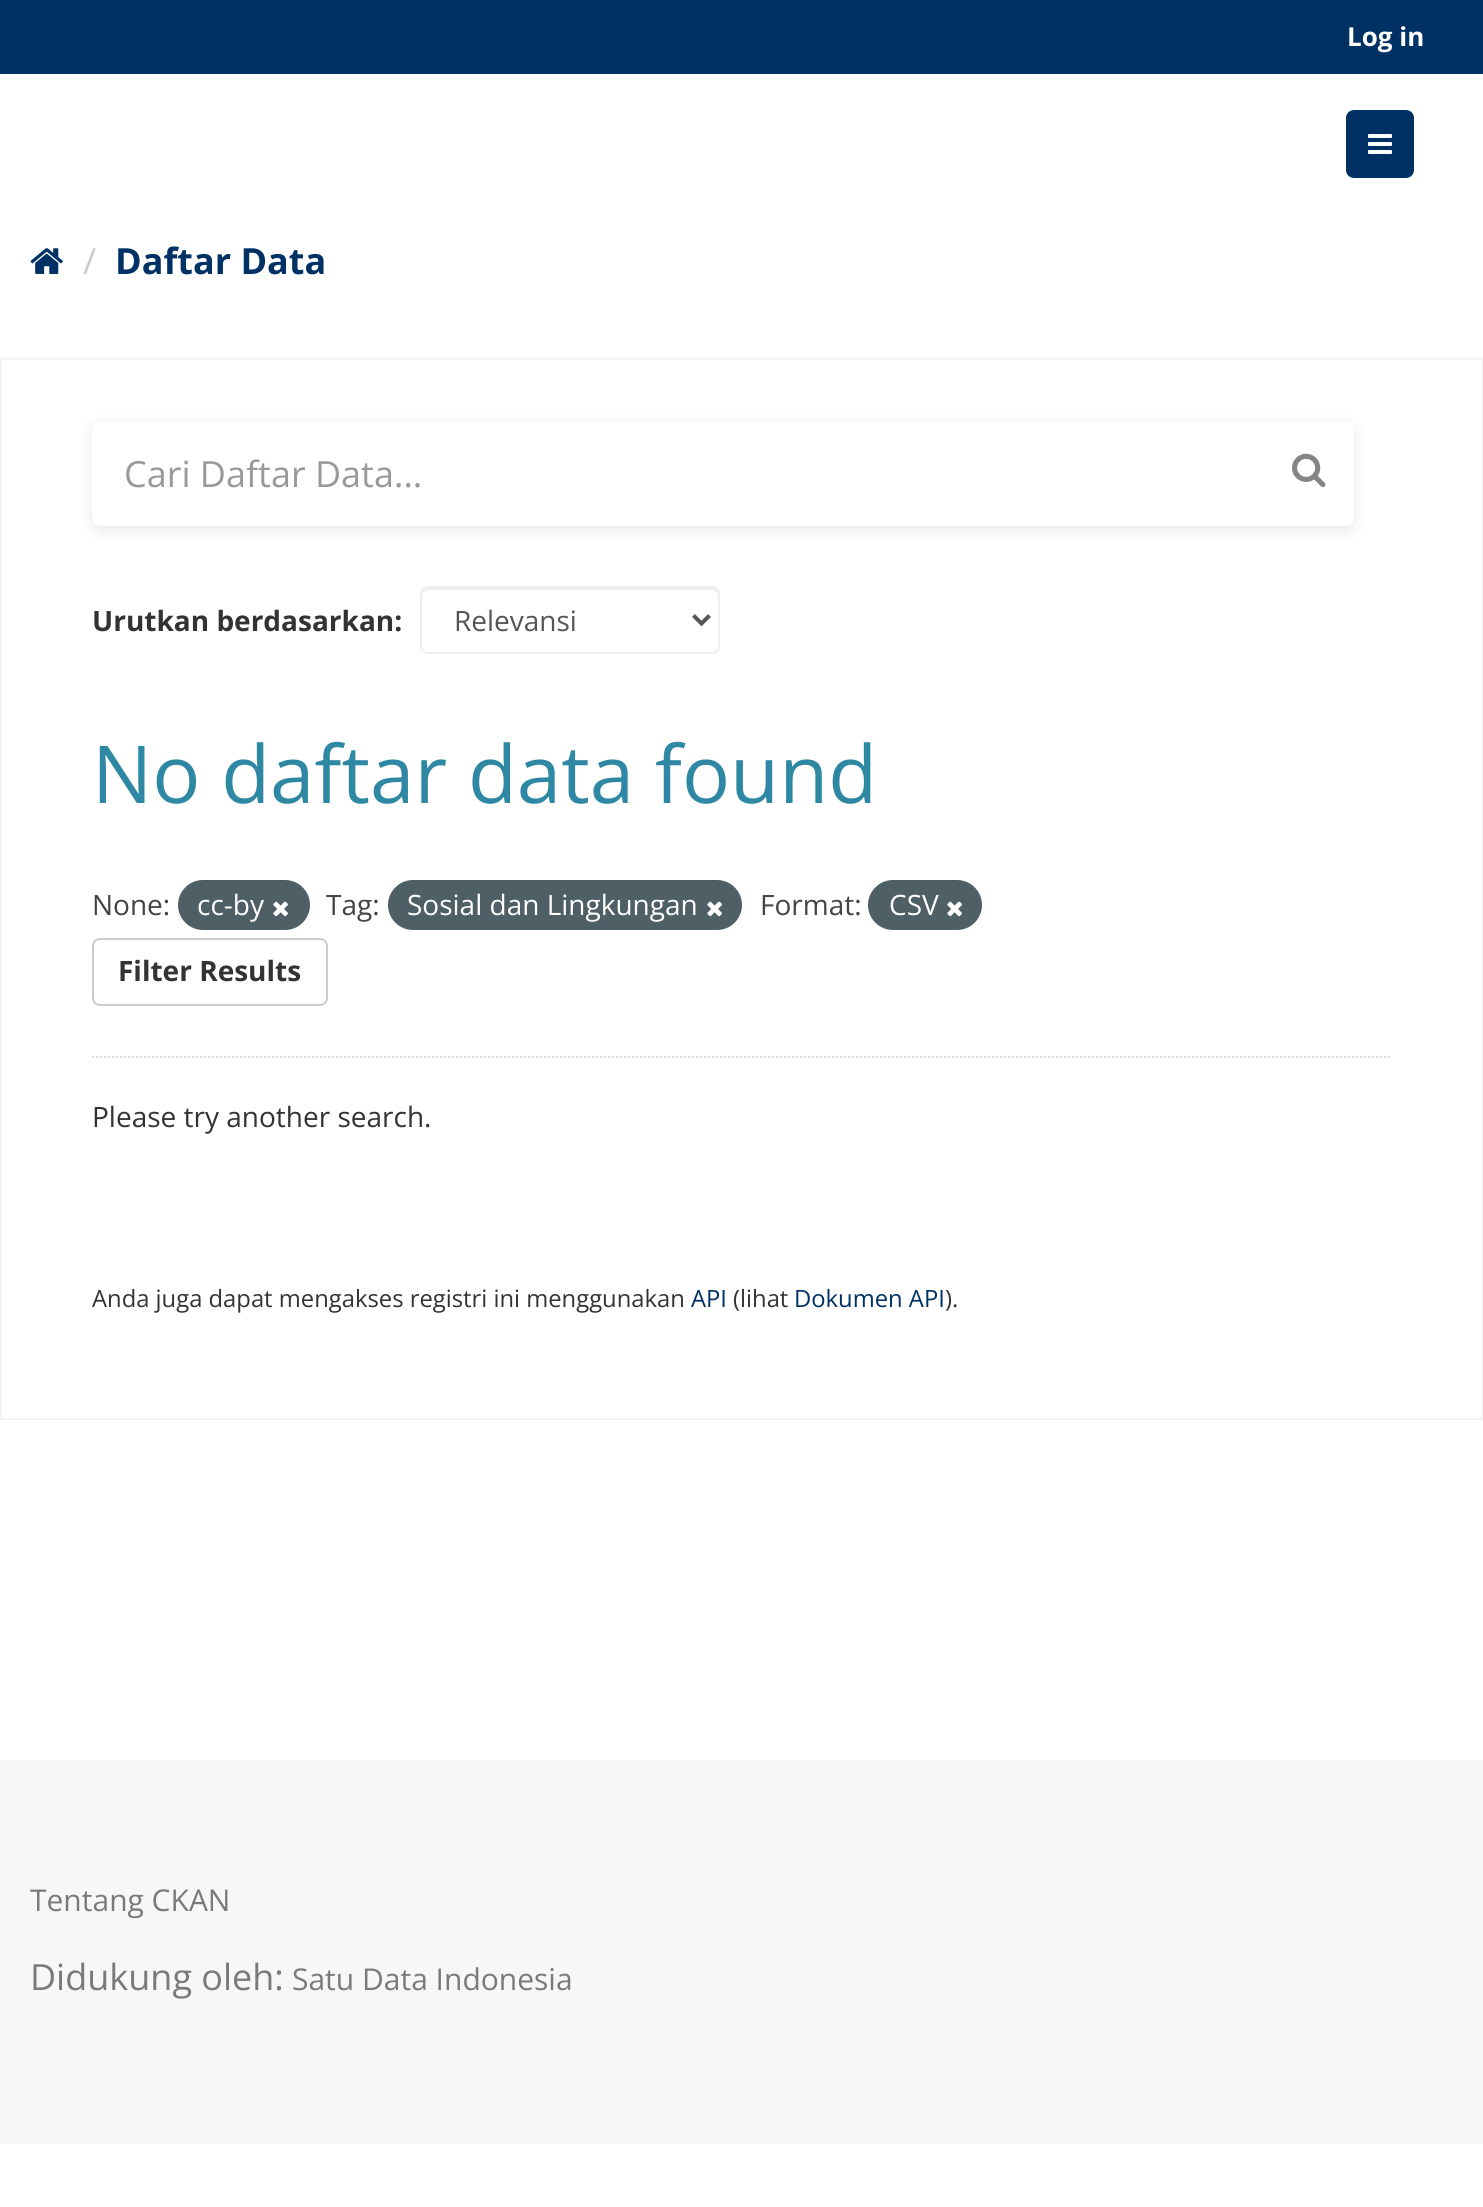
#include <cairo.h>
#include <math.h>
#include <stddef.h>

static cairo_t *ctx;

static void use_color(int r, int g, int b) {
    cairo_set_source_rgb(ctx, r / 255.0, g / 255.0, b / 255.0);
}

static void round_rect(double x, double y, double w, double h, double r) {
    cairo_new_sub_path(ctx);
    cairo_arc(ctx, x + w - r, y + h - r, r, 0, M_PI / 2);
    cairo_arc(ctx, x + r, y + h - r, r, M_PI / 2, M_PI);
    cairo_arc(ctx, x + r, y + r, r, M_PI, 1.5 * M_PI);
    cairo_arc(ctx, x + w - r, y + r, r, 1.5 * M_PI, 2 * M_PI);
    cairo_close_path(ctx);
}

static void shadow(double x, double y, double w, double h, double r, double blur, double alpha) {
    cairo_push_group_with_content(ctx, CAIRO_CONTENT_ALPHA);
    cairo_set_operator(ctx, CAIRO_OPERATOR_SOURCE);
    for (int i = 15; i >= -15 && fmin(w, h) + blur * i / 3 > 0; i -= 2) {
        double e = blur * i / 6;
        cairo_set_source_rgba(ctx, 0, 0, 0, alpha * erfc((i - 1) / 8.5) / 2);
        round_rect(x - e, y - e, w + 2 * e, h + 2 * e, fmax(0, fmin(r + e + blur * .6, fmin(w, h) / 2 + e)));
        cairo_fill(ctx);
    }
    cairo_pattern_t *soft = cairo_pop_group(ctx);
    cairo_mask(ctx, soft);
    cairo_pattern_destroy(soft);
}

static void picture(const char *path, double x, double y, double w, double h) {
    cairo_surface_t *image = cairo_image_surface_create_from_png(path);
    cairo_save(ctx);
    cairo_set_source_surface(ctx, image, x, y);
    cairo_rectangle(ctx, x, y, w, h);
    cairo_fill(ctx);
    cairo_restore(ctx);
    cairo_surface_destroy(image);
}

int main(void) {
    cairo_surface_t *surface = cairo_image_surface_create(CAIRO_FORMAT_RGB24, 1483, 2207);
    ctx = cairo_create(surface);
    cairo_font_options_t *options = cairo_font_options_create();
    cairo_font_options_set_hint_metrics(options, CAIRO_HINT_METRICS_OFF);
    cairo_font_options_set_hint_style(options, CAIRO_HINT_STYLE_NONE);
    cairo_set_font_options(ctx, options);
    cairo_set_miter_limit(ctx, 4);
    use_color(255, 255, 255);
    cairo_paint(ctx);
    use_color(0, 49, 100);
    cairo_rectangle(ctx, 0, 0, 1483, 74);
    cairo_fill(ctx);
    cairo_select_font_face(ctx, "Open Sans", CAIRO_FONT_SLANT_NORMAL, CAIRO_FONT_WEIGHT_BOLD);
    cairo_set_font_size(ctx, 26);
    use_color(255, 255, 255);
    cairo_move_to(ctx, 1347, 46);
    cairo_show_text(ctx, "Log in");
    use_color(0, 49, 100);
    round_rect(1346, 110, 68, 68, 8);
    cairo_fill(ctx);
    picture("img1.png", 1368, 134, 24, 20);
    picture("img2.png", 30, 248, 33, 26);
    cairo_select_font_face(ctx, "Open Sans", CAIRO_FONT_SLANT_NORMAL, CAIRO_FONT_WEIGHT_NORMAL);
    cairo_set_font_size(ctx, 36);
    use_color(204, 204, 204);
    cairo_move_to(ctx, 83, 274);
    cairo_show_text(ctx, "/");
    cairo_select_font_face(ctx, "Open Sans", CAIRO_FONT_SLANT_NORMAL, CAIRO_FONT_WEIGHT_BOLD);
    use_color(0, 49, 100);
    cairo_move_to(ctx, 115, 274);
    cairo_show_text(ctx, "Daftar Data");
    cairo_rectangle(ctx, 1, 359, 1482, 1060);
    use_color(243, 243, 243);
    cairo_stroke(ctx);
    cairo_new_path(ctx);
    cairo_move_to(ctx, 92, 1057);
    cairo_line_to(ctx, 1392, 1057);
    use_color(221, 221, 221);
    cairo_set_dash(ctx, (double[]){2, 2}, 2, 0);
    cairo_stroke(ctx);
    use_color(233, 230, 230);
    shadow(92, 426, 1262, 104, 8, 7, 1);
    use_color(255, 255, 255);
    round_rect(92, 422, 1262, 104, 8);
    cairo_fill(ctx);
    cairo_select_font_face(ctx, "Open Sans", CAIRO_FONT_SLANT_NORMAL, CAIRO_FONT_WEIGHT_NORMAL);
    use_color(153, 153, 153);
    cairo_move_to(ctx, 124, 487);
    cairo_show_text(ctx, "Cari Daftar Data...");
    picture("img3.png", 1292, 453, 34, 35);
    cairo_select_font_face(ctx, "Open Sans", CAIRO_FONT_SLANT_NORMAL, CAIRO_FONT_WEIGHT_BOLD);
    cairo_set_font_size(ctx, 28);
    use_color(51, 51, 51);
    cairo_move_to(ctx, 92, 631);
    cairo_show_text(ctx, "Urutkan berdasarkan:");
    use_color(236, 236, 236);
    cairo_new_path(ctx);
    cairo_move_to(ctx, 428, 590);
    cairo_line_to(ctx, 712, 590);
    cairo_curve_to(ctx, 715, 590, 718, 593, 718, 596);
    cairo_line_to(ctx, 718, 594);
    cairo_curve_to(ctx, 718, 591, 715, 588, 712, 588);
    cairo_line_to(ctx, 428, 588);
    cairo_curve_to(ctx, 425, 588, 422, 591, 422, 594);
    cairo_line_to(ctx, 422, 596);
    cairo_curve_to(ctx, 422, 593, 425, 590, 428, 590);
    cairo_close_path(ctx);
    cairo_fill(ctx);
    round_rect(421, 587, 298, 66, 7);
    use_color(238, 238, 238);
    cairo_set_dash(ctx, NULL, 0, 0);
    cairo_stroke(ctx);
    cairo_new_path(ctx);
    cairo_move_to(ctx, 693.5, 615.5);
    cairo_line_to(ctx, 701.5, 623.5);
    cairo_line_to(ctx, 709.5, 615.5);
    use_color(85, 85, 85);
    cairo_set_line_width(ctx, 4);
    cairo_stroke(ctx);
    cairo_select_font_face(ctx, "Open Sans", CAIRO_FONT_SLANT_NORMAL, CAIRO_FONT_WEIGHT_NORMAL);
    cairo_move_to(ctx, 454, 631);
    cairo_show_text(ctx, "Relevansi");
    cairo_set_font_size(ctx, 80);
    use_color(47, 136, 163);
    cairo_move_to(ctx, 92, 803);
    cairo_show_text(ctx, "No daftar data found");
    cairo_set_font_size(ctx, 28);
    use_color(68, 68, 68);
    cairo_move_to(ctx, 92, 915);
    cairo_show_text(ctx, "None:");
    use_color(78, 95, 101);
    round_rect(178, 880, 132, 50, 25);
    cairo_fill(ctx);
    use_color(255, 255, 255);
    cairo_move_to(ctx, 197, 915);
    cairo_show_text(ctx, "cc-by");
    picture("img4.png", 273, 901, 15, 16);
    use_color(68, 68, 68);
    cairo_move_to(ctx, 326, 915);
    cairo_show_text(ctx, "Tag:");
    use_color(78, 95, 101);
    round_rect(388, 880, 354, 50, 25);
    cairo_fill(ctx);
    use_color(255, 255, 255);
    cairo_move_to(ctx, 407, 915);
    cairo_show_text(ctx, "Sosial dan Lingkungan");
    picture("img4.png", 707, 901, 15, 16);
    use_color(68, 68, 68);
    cairo_move_to(ctx, 760, 915);
    cairo_show_text(ctx, "Format:");
    use_color(78, 95, 101);
    round_rect(868, 880, 114, 50, 25);
    cairo_fill(ctx);
    use_color(255, 255, 255);
    cairo_move_to(ctx, 889, 915);
    cairo_show_text(ctx, "CSV");
    picture("img4.png", 947, 901, 15, 16);
    round_rect(93, 939, 234, 66, 7);
    use_color(204, 204, 204);
    cairo_set_line_width(ctx, 2);
    cairo_stroke(ctx);
    cairo_select_font_face(ctx, "Open Sans", CAIRO_FONT_SLANT_NORMAL, CAIRO_FONT_WEIGHT_BOLD);
    use_color(51, 51, 51);
    cairo_move_to(ctx, 118, 981);
    cairo_show_text(ctx, "Filter Results");
    cairo_select_font_face(ctx, "Open Sans", CAIRO_FONT_SLANT_NORMAL, CAIRO_FONT_WEIGHT_NORMAL);
    cairo_move_to(ctx, 92, 1127);
    cairo_show_text(ctx, "Please try another search.");
    cairo_set_font_size(ctx, 23.8);
    cairo_move_to(ctx, 92, 1307);
    cairo_show_text(ctx, "Anda juga dapat mengakses registri ini menggunakan");
    use_color(0, 49, 100);
    cairo_move_to(ctx, 691, 1307);
    cairo_show_text(ctx, "API");
    use_color(51, 51, 51);
    cairo_move_to(ctx, 733, 1307);
    cairo_show_text(ctx, "(lihat");
    use_color(0, 49, 100);
    cairo_move_to(ctx, 794, 1307);
    cairo_show_text(ctx, "Dokumen API");
    use_color(51, 51, 51);
    cairo_move_to(ctx, 945, 1307);
    cairo_show_text(ctx, ").");
    use_color(247, 247, 247);
    cairo_rectangle(ctx, 0, 1760, 1483, 384);
    cairo_fill(ctx);
    cairo_set_font_size(ctx, 30);
    use_color(122, 122, 122);
    cairo_move_to(ctx, 30, 1911);
    cairo_show_text(ctx, "Tentang CKAN");
    cairo_set_font_size(ctx, 36);
    cairo_move_to(ctx, 30, 1990);
    cairo_show_text(ctx, "Didukung oleh:");
    cairo_set_font_size(ctx, 30);
    cairo_move_to(ctx, 292, 1990);
    cairo_show_text(ctx, "Satu Data Indonesia");
    cairo_surface_write_to_png(surface, "result.png");
    cairo_font_options_destroy(options);
    cairo_destroy(ctx);
    cairo_surface_destroy(surface);
    return 0;
}
